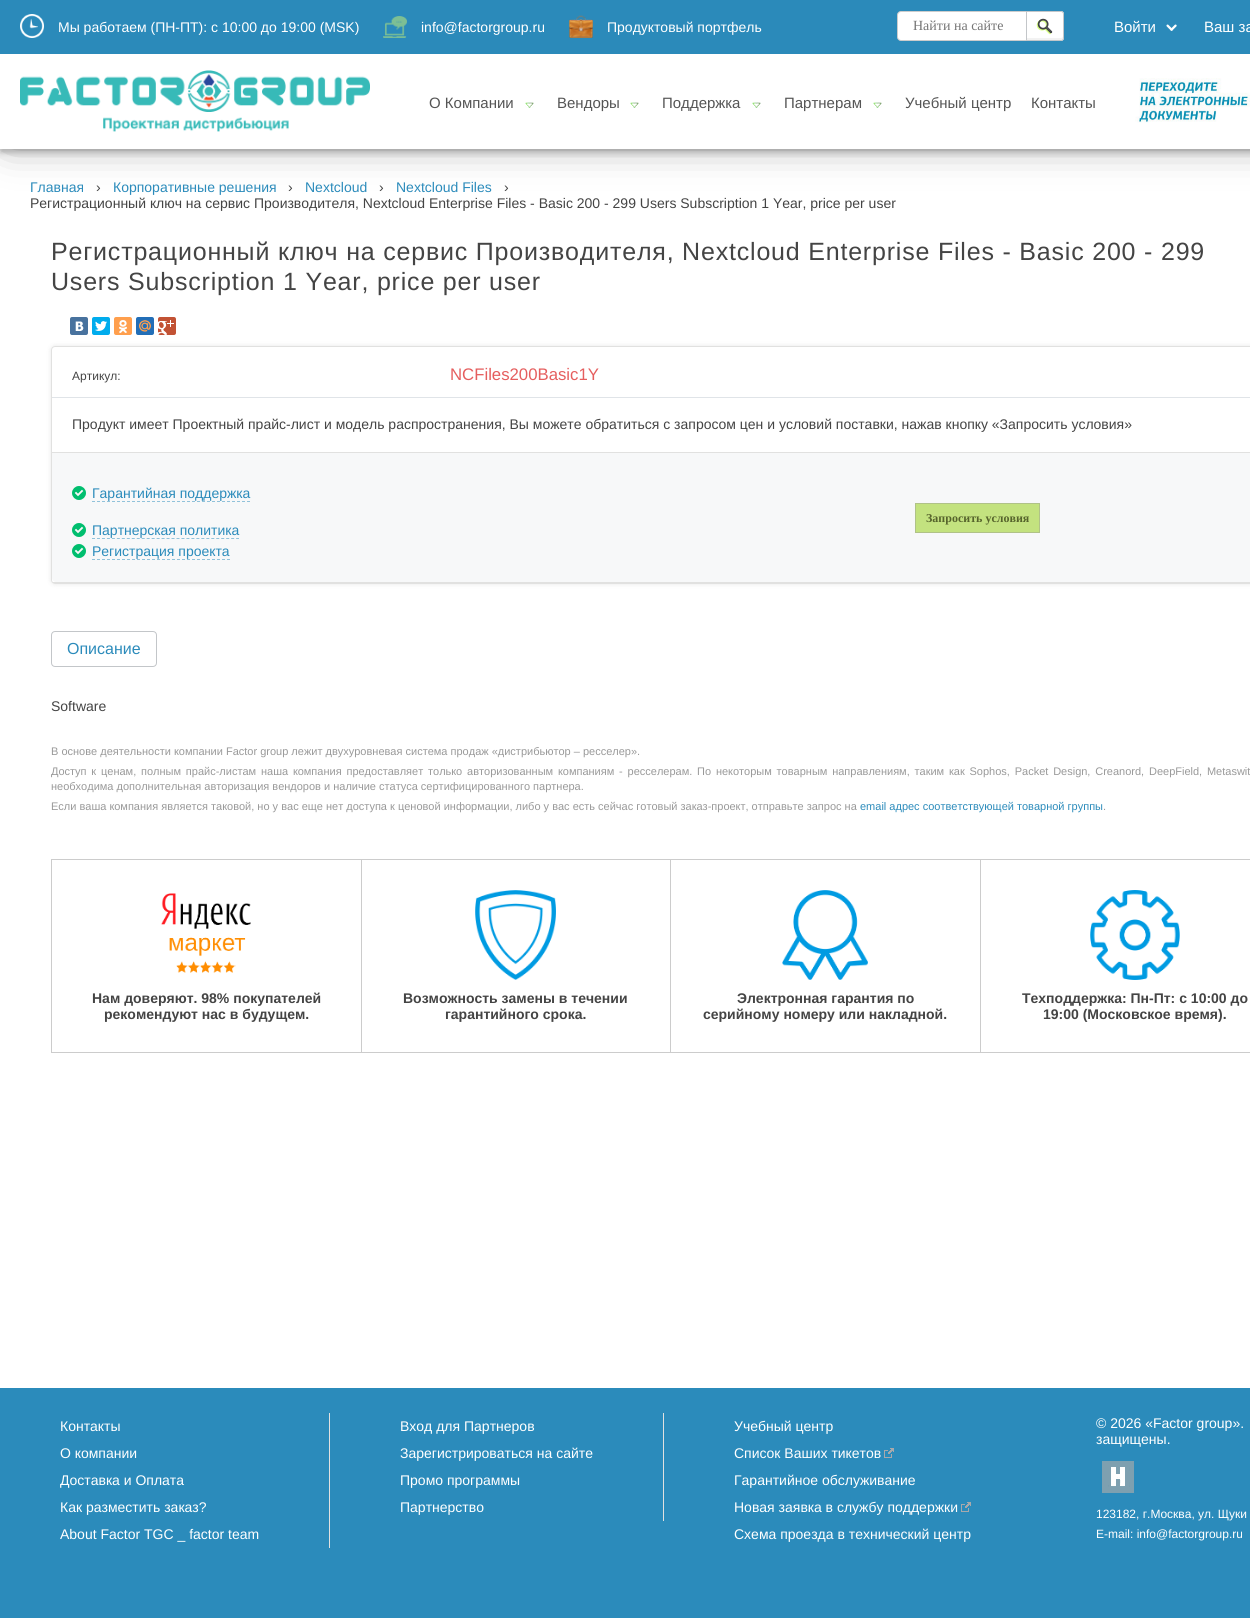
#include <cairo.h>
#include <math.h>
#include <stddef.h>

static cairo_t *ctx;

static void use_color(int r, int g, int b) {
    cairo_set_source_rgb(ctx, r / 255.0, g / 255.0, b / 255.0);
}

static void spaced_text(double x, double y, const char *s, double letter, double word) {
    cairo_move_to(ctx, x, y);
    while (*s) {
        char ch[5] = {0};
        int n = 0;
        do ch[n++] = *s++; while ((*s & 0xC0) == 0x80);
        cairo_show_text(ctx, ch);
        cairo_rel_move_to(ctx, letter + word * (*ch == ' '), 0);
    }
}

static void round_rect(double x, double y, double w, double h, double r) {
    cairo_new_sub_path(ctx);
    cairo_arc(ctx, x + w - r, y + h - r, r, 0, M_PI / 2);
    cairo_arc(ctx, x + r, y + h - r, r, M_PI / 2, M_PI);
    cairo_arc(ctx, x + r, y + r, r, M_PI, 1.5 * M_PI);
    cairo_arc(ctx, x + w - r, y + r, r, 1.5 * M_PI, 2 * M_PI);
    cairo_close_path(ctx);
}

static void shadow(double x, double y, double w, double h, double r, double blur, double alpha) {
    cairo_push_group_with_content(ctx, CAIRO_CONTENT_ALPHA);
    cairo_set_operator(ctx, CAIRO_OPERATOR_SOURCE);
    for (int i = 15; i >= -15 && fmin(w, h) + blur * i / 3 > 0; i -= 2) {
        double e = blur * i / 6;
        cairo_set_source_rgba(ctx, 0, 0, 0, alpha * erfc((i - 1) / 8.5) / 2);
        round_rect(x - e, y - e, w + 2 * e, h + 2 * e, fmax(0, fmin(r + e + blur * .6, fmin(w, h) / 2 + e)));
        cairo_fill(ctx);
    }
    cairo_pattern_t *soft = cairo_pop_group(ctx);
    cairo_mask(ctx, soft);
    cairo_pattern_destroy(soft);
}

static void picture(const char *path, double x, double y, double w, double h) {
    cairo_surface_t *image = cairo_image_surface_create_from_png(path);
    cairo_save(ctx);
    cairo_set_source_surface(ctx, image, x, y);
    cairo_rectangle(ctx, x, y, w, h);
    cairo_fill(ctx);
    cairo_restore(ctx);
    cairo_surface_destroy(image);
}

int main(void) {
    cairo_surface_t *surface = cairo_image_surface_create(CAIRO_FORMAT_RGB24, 1250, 1618);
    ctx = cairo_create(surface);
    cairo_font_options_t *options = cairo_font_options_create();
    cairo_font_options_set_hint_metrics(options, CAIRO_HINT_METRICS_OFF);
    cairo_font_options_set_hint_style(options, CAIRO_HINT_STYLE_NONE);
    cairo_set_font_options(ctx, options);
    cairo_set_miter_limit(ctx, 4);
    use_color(255, 255, 255);
    cairo_paint(ctx);
    use_color(0, 0, 0);
    shadow(0, 4, 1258, 149, 0, 2.5, 0.2);
    shadow(0, 96, 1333, 45, 22.5, 20, 0.45);
    use_color(43, 138, 186);
    cairo_rectangle(ctx, 0, 0, 1250, 54);
    cairo_fill(ctx);
    picture("img1.png", 20, 14, 24, 24);
    cairo_select_font_face(ctx, "Liberation Sans", CAIRO_FONT_SLANT_NORMAL, CAIRO_FONT_WEIGHT_NORMAL);
    cairo_set_font_size(ctx, 14);
    use_color(255, 255, 255);
    cairo_move_to(ctx, 58, 32);
    cairo_show_text(ctx, "Мы работаем (ПН-ПТ): с 10:00 до 19:00 (MSK)");
    picture("img2.png", 383, 16, 24, 22);
    cairo_move_to(ctx, 421, 32);
    cairo_show_text(ctx, "info@factorgroup.ru");
    picture("img3.png", 569, 15, 24, 23);
    cairo_move_to(ctx, 607, 32);
    cairo_show_text(ctx, "Продуктовый портфель");
    round_rect(897.5, 11.5, 166, 29, 3.5);
    cairo_fill_preserve(ctx);
    use_color(204, 204, 204);
    cairo_set_line_width(ctx, 1);
    cairo_stroke(ctx);
    cairo_select_font_face(ctx, "Liberation Serif", CAIRO_FONT_SLANT_NORMAL, CAIRO_FONT_WEIGHT_NORMAL);
    use_color(117, 117, 117);
    cairo_move_to(ctx, 913, 30);
    cairo_show_text(ctx, "Найти на сайте");
    use_color(255, 255, 255);
    cairo_new_path(ctx);
    cairo_move_to(ctx, 1026, 11);
    cairo_line_to(ctx, 1061, 11);
    cairo_curve_to(ctx, 1062.5, 11, 1064, 12.5, 1064, 14);
    cairo_line_to(ctx, 1064, 38);
    cairo_curve_to(ctx, 1064, 39.5, 1062.5, 41, 1061, 41);
    cairo_line_to(ctx, 1026, 41);
    cairo_close_path(ctx);
    cairo_fill(ctx);
    picture("img4.png", 1036, 18, 17, 17);
    use_color(242, 242, 242);
    cairo_new_path(ctx);
    cairo_move_to(ctx, 1027, 38);
    cairo_line_to(ctx, 1027, 40);
    cairo_line_to(ctx, 1061, 40);
    cairo_curve_to(ctx, 1062, 40, 1063, 39, 1063, 38);
    cairo_line_to(ctx, 1063, 36);
    cairo_curve_to(ctx, 1063, 37, 1062, 38, 1061, 38);
    cairo_close_path(ctx);
    cairo_fill(ctx);
    cairo_new_path(ctx);
    cairo_move_to(ctx, 1026.5, 11.5);
    cairo_line_to(ctx, 1061, 11.5);
    cairo_curve_to(ctx, 1062.5, 11.5, 1063.5, 12.5, 1063.5, 14);
    cairo_line_to(ctx, 1063.5, 38);
    cairo_curve_to(ctx, 1063.5, 39.5, 1062.5, 40.5, 1061, 40.5);
    cairo_line_to(ctx, 1026.5, 40.5);
    cairo_close_path(ctx);
    use_color(195, 198, 201);
    cairo_stroke(ctx);
    picture("img5.png", 1166, 24, 11, 7);
    cairo_select_font_face(ctx, "Liberation Sans", CAIRO_FONT_SLANT_NORMAL, CAIRO_FONT_WEIGHT_NORMAL);
    cairo_set_font_size(ctx, 15);
    use_color(255, 255, 255);
    cairo_move_to(ctx, 1114, 32);
    cairo_show_text(ctx, "Войти");
    cairo_move_to(ctx, 1204, 32);
    cairo_show_text(ctx, "Ваш за");
    cairo_rectangle(ctx, 0, 54, 1250, 95);
    cairo_fill(ctx);
    picture("img6.png", 20, 70, 350, 62);
    picture("img7.png", 525, 102, 9, 6);
    use_color(85, 85, 85);
    cairo_move_to(ctx, 429, 108);
    cairo_show_text(ctx, "О Компании");
    picture("img7.png", 630, 102, 9, 6);
    cairo_move_to(ctx, 557, 108);
    cairo_show_text(ctx, "Вендоры");
    picture("img7.png", 752, 102, 9, 6);
    cairo_move_to(ctx, 662, 108);
    cairo_show_text(ctx, "Поддержка");
    picture("img7.png", 873, 102, 9, 6);
    cairo_move_to(ctx, 784, 108);
    cairo_show_text(ctx, "Партнерам");
    cairo_move_to(ctx, 905, 108);
    cairo_show_text(ctx, "Учебный центр");
    cairo_move_to(ctx, 1031, 108);
    cairo_show_text(ctx, "Контакты");
    picture("img8.png", 1135, 78, 115, 45);
    cairo_set_font_size(ctx, 14);
    use_color(43, 139, 187);
    cairo_move_to(ctx, 30, 192);
    cairo_show_text(ctx, "Главная");
    use_color(68, 68, 68);
    cairo_move_to(ctx, 96, 192);
    cairo_show_text(ctx, "›");
    use_color(43, 139, 187);
    cairo_move_to(ctx, 113, 192);
    cairo_show_text(ctx, "Корпоративные решения");
    use_color(68, 68, 68);
    cairo_move_to(ctx, 288, 192);
    cairo_show_text(ctx, "›");
    use_color(43, 139, 187);
    cairo_move_to(ctx, 305, 192);
    cairo_show_text(ctx, "Nextcloud");
    use_color(68, 68, 68);
    cairo_move_to(ctx, 379, 192);
    cairo_show_text(ctx, "›");
    use_color(43, 139, 187);
    cairo_move_to(ctx, 396, 192);
    cairo_show_text(ctx, "Nextcloud Files");
    use_color(68, 68, 68);
    cairo_move_to(ctx, 504, 192);
    cairo_show_text(ctx, "›");
    cairo_move_to(ctx, 30, 208);
    cairo_show_text(ctx, "Регистрационный ключ на сервис Производителя, Nextcloud Enterprise Files - Basic 200 - 299 Users Subscription 1 Year, price per user");
    cairo_set_font_size(ctx, 25);
    spaced_text(51, 260, "Регистрационный ключ на сервис Производителя, Nextcloud Enterprise Files - Basic 200 - 299", 0.8, 0);
    spaced_text(51, 290, "Users Subscription 1 Year, price per user", 0.8, 0);
    use_color(72, 114, 158);
    round_rect(70, 317, 18, 18, 2);
    cairo_fill(ctx);
    picture("img9.png", 75, 321, 9, 10);
    use_color(0, 172, 237);
    round_rect(92, 317, 18, 18, 2);
    cairo_fill(ctx);
    picture("img10.png", 95, 321, 12, 10);
    use_color(255, 159, 77);
    round_rect(114, 317, 18, 18, 2);
    cairo_fill(ctx);
    picture("img11.png", 119, 320, 8, 13);
    use_color(34, 110, 183);
    round_rect(136, 317, 18, 18, 2);
    cairo_fill(ctx);
    picture("img12.png", 139, 320, 12, 12);
    use_color(194, 82, 52);
    round_rect(158, 317, 18, 18, 2);
    cairo_fill(ctx);
    picture("img13.png", 158, 320, 16, 15);
    cairo_save(ctx);
    cairo_set_fill_rule(ctx, CAIRO_FILL_RULE_EVEN_ODD);
    cairo_new_path(ctx);
    cairo_move_to(ctx, 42, 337);
    cairo_line_to(ctx, 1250, 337);
    cairo_line_to(ctx, 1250, 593);
    cairo_line_to(ctx, 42, 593);
    cairo_close_path(ctx);
    cairo_move_to(ctx, 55, 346);
    cairo_line_to(ctx, 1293, 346);
    cairo_curve_to(ctx, 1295, 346, 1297, 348, 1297, 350);
    cairo_line_to(ctx, 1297, 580);
    cairo_curve_to(ctx, 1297, 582, 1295, 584, 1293, 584);
    cairo_line_to(ctx, 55, 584);
    cairo_curve_to(ctx, 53, 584, 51, 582, 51, 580);
    cairo_line_to(ctx, 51, 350);
    cairo_curve_to(ctx, 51, 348, 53, 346, 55, 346);
    cairo_close_path(ctx);
    cairo_clip(ctx);
    use_color(0, 0, 0);
    shadow(51, 346, 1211, 238, 4, 2.5, 0.1);
    cairo_restore(ctx);
    round_rect(51.5, 346.5, 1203, 237, 3.5);
    use_color(225, 225, 224);
    cairo_stroke(ctx);
    cairo_rectangle(ctx, 53, 582, 1197, 1);
    cairo_fill(ctx);
    cairo_set_font_size(ctx, 12);
    use_color(68, 68, 68);
    cairo_move_to(ctx, 72, 380);
    cairo_show_text(ctx, "Артикул:");
    cairo_set_font_size(ctx, 16.75);
    use_color(229, 94, 94);
    cairo_move_to(ctx, 450, 380);
    cairo_show_text(ctx, "NCFiles200Basic1Y");
    use_color(224, 228, 232);
    cairo_rectangle(ctx, 52, 397, 1198, 1);
    cairo_fill(ctx);
    cairo_set_font_size(ctx, 14);
    use_color(68, 68, 68);
    cairo_move_to(ctx, 72, 429);
    cairo_show_text(ctx, "Продукт имеет Проектный прайс-лист и модель распространения, Вы можете обратиться с запросом цен и условий поставки, нажав кнопку «Запросить условия»");
    use_color(247, 248, 249);
    cairo_new_path(ctx);
    cairo_move_to(ctx, 52, 452);
    cairo_line_to(ctx, 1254, 452);
    cairo_line_to(ctx, 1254, 578);
    cairo_curve_to(ctx, 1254, 580, 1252, 582, 1250, 582);
    cairo_line_to(ctx, 56, 582);
    cairo_curve_to(ctx, 54, 582, 52, 580, 52, 578);
    cairo_close_path(ctx);
    cairo_fill(ctx);
    use_color(225, 225, 224);
    cairo_rectangle(ctx, 52, 452, 1198, 1);
    cairo_fill(ctx);
    picture("img14.png", 72, 486, 14, 14);
    use_color(43, 139, 187);
    cairo_move_to(ctx, 92, 498);
    cairo_show_text(ctx, "Гарантийная поддержка");
    cairo_new_path(ctx);
    cairo_move_to(ctx, 92, 501.5);
    cairo_line_to(ctx, 250, 501.5);
    use_color(145, 194, 218);
    cairo_set_dash(ctx, (double[]){3, 2}, 2, 0);
    cairo_stroke(ctx);
    picture("img14.png", 72, 523, 14, 14);
    use_color(43, 139, 187);
    cairo_move_to(ctx, 92, 535);
    cairo_show_text(ctx, "Партнерская политика");
    cairo_new_path(ctx);
    cairo_move_to(ctx, 92, 538.5);
    cairo_line_to(ctx, 239, 538.5);
    use_color(145, 194, 218);
    cairo_set_dash(ctx, (double[]){3, 1.97}, 2, 0);
    cairo_stroke(ctx);
    picture("img14.png", 72, 544, 14, 14);
    use_color(43, 139, 187);
    cairo_move_to(ctx, 92, 556);
    cairo_show_text(ctx, "Регистрация проекта");
    cairo_new_path(ctx);
    cairo_move_to(ctx, 92, 559.5);
    cairo_line_to(ctx, 230, 559.5);
    use_color(145, 194, 218);
    cairo_set_dash(ctx, (double[]){3, 2}, 2, 0);
    cairo_stroke(ctx);
    use_color(195, 226, 127);
    cairo_rectangle(ctx, 915.5, 503.5, 124, 29);
    cairo_fill_preserve(ctx);
    use_color(176, 194, 136);
    cairo_set_dash(ctx, NULL, 0, 0);
    cairo_stroke(ctx);
    cairo_select_font_face(ctx, "Liberation Serif", CAIRO_FONT_SLANT_NORMAL, CAIRO_FONT_WEIGHT_BOLD);
    cairo_set_font_size(ctx, 12);
    use_color(86, 100, 44);
    cairo_move_to(ctx, 926, 522);
    cairo_show_text(ctx, "Запросить условия");
    round_rect(51.5, 631.5, 105, 35, 3.5);
    use_color(195, 198, 201);
    cairo_stroke(ctx);
    cairo_select_font_face(ctx, "Liberation Sans", CAIRO_FONT_SLANT_NORMAL, CAIRO_FONT_WEIGHT_NORMAL);
    cairo_set_font_size(ctx, 16);
    use_color(43, 139, 187);
    cairo_move_to(ctx, 67, 654);
    cairo_show_text(ctx, "Описание");
    cairo_set_font_size(ctx, 14);
    use_color(68, 68, 68);
    cairo_move_to(ctx, 51, 711);
    cairo_show_text(ctx, "Software");
    cairo_set_font_size(ctx, 11);
    use_color(153, 153, 153);
    cairo_move_to(ctx, 51, 755);
    cairo_show_text(ctx, "В основе деятельности компании Factor group лежит двухуровневая система продаж «дистрибьютор – ресселер».");
    spaced_text(51, 775, "Доступ к ценам, полным прайс-листам наша компания предоставляет только авторизованным компаниям - ресселерам. По некоторым товарным направлениям, таким как Sophos, Packet Design, Creanord, DeepField, Metaswit", 0, 1.75);
    cairo_move_to(ctx, 51, 790);
    cairo_show_text(ctx, "необходима дополнительная авторизация вендоров и наличие статуса сертифицированного партнера.");
    cairo_move_to(ctx, 51, 810);
    cairo_show_text(ctx, "Если ваша компания является таковой, но у вас еще нет доступа к ценовой информации, либо у вас есть сейчас готовый заказ-проект, отправьте запрос на");
    use_color(43, 139, 187);
    cairo_move_to(ctx, 860, 810);
    cairo_show_text(ctx, "email адрес соответствующей товарной группы");
    use_color(153, 153, 153);
    cairo_move_to(ctx, 1103, 810);
    cairo_show_text(ctx, ".");
    cairo_rectangle(ctx, 51.5, 859.5, 310, 193);
    use_color(204, 204, 204);
    cairo_stroke(ctx);
    picture("img15.png", 161, 893, 90, 80);
    cairo_select_font_face(ctx, "Liberation Sans", CAIRO_FONT_SLANT_NORMAL, CAIRO_FONT_WEIGHT_BOLD);
    cairo_set_font_size(ctx, 14);
    use_color(68, 68, 68);
    cairo_move_to(ctx, 92, 1003);
    cairo_show_text(ctx, "Нам доверяют. 98% покупателей");
    cairo_move_to(ctx, 104, 1019);
    cairo_show_text(ctx, "рекомендуют нас в будущем.");
    cairo_rectangle(ctx, 361.5, 859.5, 309, 193);
    use_color(204, 204, 204);
    cairo_stroke(ctx);
    picture("img16.png", 475, 890, 81, 90);
    use_color(68, 68, 68);
    cairo_move_to(ctx, 403, 1003);
    cairo_show_text(ctx, "Возможность замены в течении");
    cairo_move_to(ctx, 445, 1019);
    cairo_show_text(ctx, "гарантийного срока.");
    cairo_rectangle(ctx, 670.5, 859.5, 310, 193);
    use_color(204, 204, 204);
    cairo_stroke(ctx);
    picture("img17.png", 782, 890, 86, 90);
    use_color(68, 68, 68);
    cairo_move_to(ctx, 737, 1003);
    cairo_show_text(ctx, "Электронная гарантия по");
    cairo_move_to(ctx, 703, 1019);
    cairo_show_text(ctx, "серийному номеру или накладной.");
    cairo_rectangle(ctx, 980.5, 859.5, 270, 193);
    use_color(204, 204, 204);
    cairo_stroke(ctx);
    picture("img18.png", 1090, 890, 90, 90);
    use_color(68, 68, 68);
    cairo_move_to(ctx, 1022, 1003);
    cairo_show_text(ctx, "Техподдержка: Пн-Пт: с 10:00 до");
    cairo_move_to(ctx, 1043, 1019);
    cairo_show_text(ctx, "19:00 (Московское время).");
    use_color(43, 139, 187);
    cairo_rectangle(ctx, 0, 1388, 1250, 230);
    cairo_fill(ctx);
    use_color(225, 225, 224);
    cairo_rectangle(ctx, 329, 1413, 1, 135);
    cairo_fill(ctx);
    cairo_select_font_face(ctx, "Liberation Sans", CAIRO_FONT_SLANT_NORMAL, CAIRO_FONT_WEIGHT_NORMAL);
    use_color(255, 255, 255);
    cairo_move_to(ctx, 60, 1431);
    cairo_show_text(ctx, "Контакты");
    cairo_move_to(ctx, 60, 1458);
    cairo_show_text(ctx, "О компании");
    cairo_move_to(ctx, 60, 1485);
    cairo_show_text(ctx, "Доставка и Оплата");
    cairo_move_to(ctx, 60, 1512);
    cairo_show_text(ctx, "Как разместить заказ?");
    cairo_move_to(ctx, 60, 1539);
    cairo_show_text(ctx, "About Factor TGC _ factor team");
    use_color(225, 225, 224);
    cairo_rectangle(ctx, 663, 1413, 1, 108);
    cairo_fill(ctx);
    use_color(255, 255, 255);
    cairo_move_to(ctx, 400, 1431);
    cairo_show_text(ctx, "Вход для Партнеров");
    cairo_move_to(ctx, 400, 1458);
    cairo_show_text(ctx, "Зарегистрироваться на сайте");
    cairo_move_to(ctx, 400, 1485);
    cairo_show_text(ctx, "Промо программы");
    cairo_move_to(ctx, 400, 1512);
    cairo_show_text(ctx, "Партнерство");
    cairo_move_to(ctx, 734, 1431);
    cairo_show_text(ctx, "Учебный центр");
    cairo_move_to(ctx, 734, 1458);
    cairo_show_text(ctx, "Список Ваших тикетов");
    picture("img19.png", 884, 1448, 10, 10);
    cairo_move_to(ctx, 734, 1485);
    cairo_show_text(ctx, "Гарантийное обслуживание");
    cairo_move_to(ctx, 734, 1512);
    cairo_show_text(ctx, "Новая заявка в службу поддержки");
    picture("img19.png", 961, 1502, 10, 10);
    cairo_move_to(ctx, 734, 1539);
    cairo_show_text(ctx, "Схема проезда в технический центр");
    cairo_move_to(ctx, 1096, 1428);
    cairo_show_text(ctx, "© 2026 «Factor group».");
    cairo_move_to(ctx, 1096, 1444);
    cairo_show_text(ctx, "защищены.");
    picture("img20.png", 1102, 1461, 32, 32);
    cairo_set_font_size(ctx, 12);
    cairo_move_to(ctx, 1096, 1518);
    cairo_show_text(ctx, "123182, г.Москва, ул. Щуки");
    cairo_move_to(ctx, 1096, 1538);
    cairo_show_text(ctx, "E-mail: info@factorgroup.ru");
    cairo_surface_write_to_png(surface, "result.png");
    cairo_font_options_destroy(options);
    cairo_destroy(ctx);
    cairo_surface_destroy(surface);
    return 0;
}
